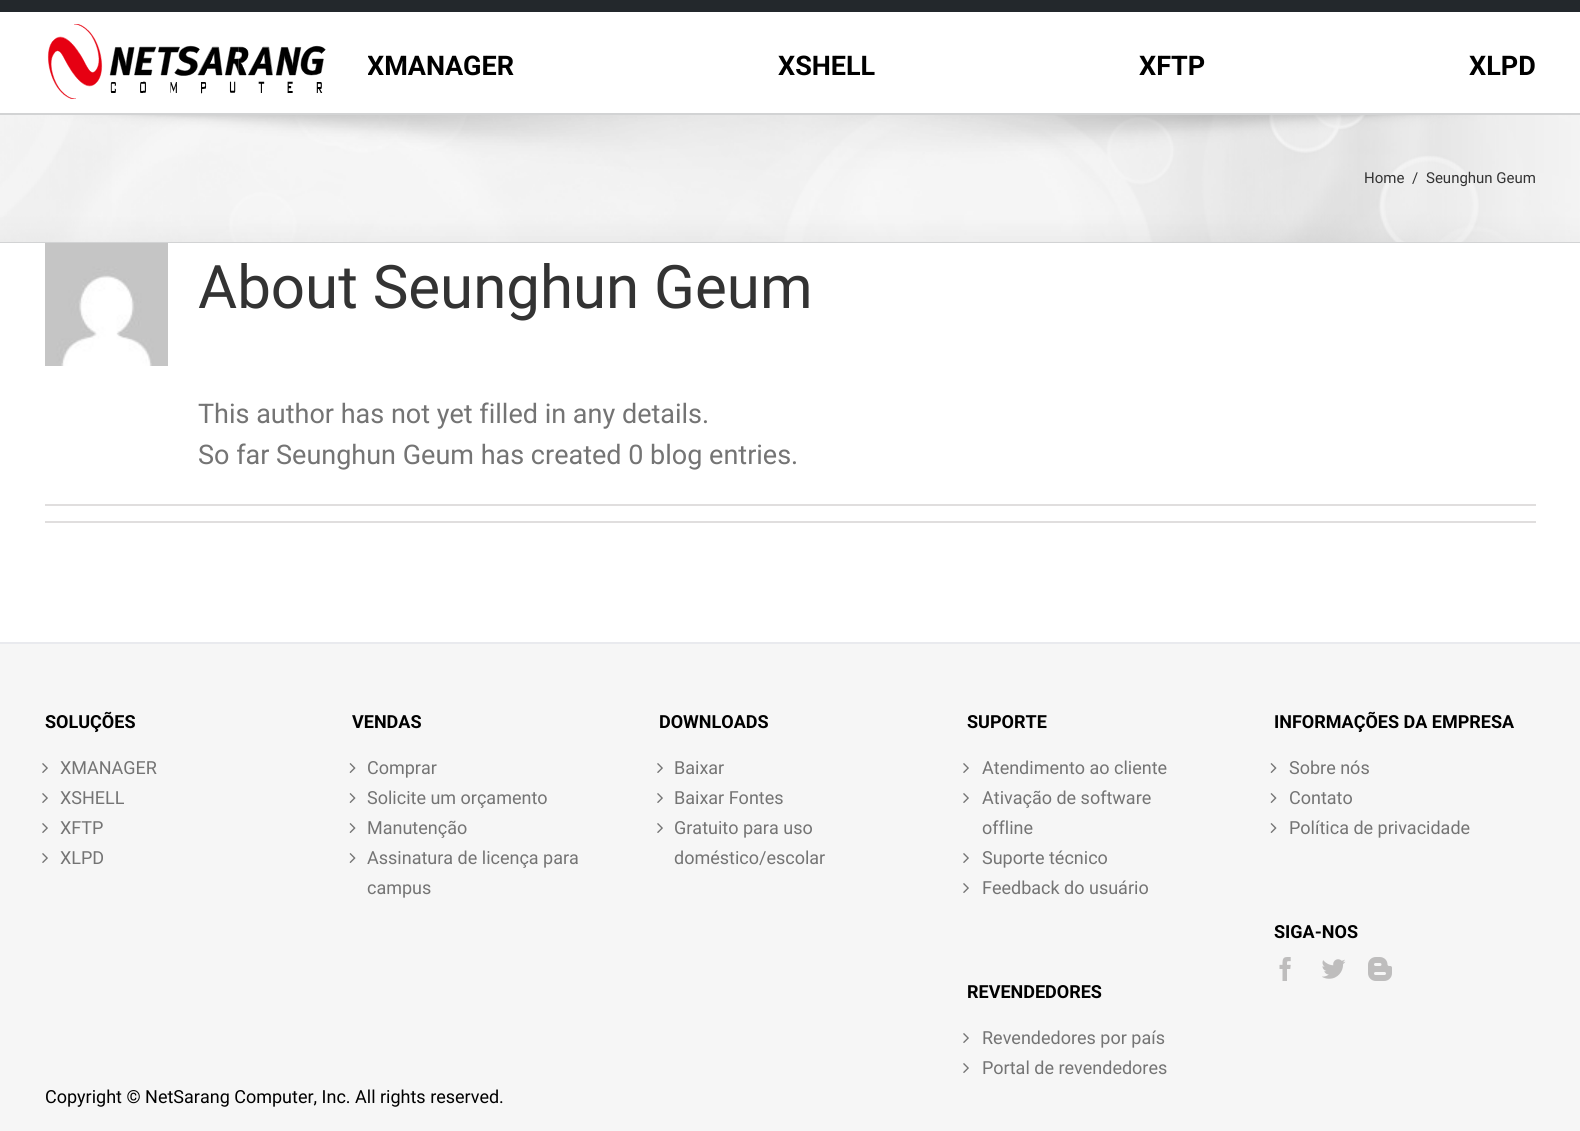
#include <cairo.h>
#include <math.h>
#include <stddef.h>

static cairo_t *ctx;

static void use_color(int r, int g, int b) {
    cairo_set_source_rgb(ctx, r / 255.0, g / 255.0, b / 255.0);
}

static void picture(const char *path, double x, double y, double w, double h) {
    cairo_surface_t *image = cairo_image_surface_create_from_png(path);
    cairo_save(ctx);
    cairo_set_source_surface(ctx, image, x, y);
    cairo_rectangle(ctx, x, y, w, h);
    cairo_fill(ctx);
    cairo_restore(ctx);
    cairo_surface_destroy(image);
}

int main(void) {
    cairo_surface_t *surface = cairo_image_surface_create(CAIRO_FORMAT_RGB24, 1580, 1131);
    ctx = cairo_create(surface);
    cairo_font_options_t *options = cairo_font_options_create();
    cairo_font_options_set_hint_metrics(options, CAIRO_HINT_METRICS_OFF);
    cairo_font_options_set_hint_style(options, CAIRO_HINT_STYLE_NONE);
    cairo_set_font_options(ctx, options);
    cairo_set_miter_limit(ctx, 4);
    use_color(246, 246, 246);
    cairo_paint(ctx);
    use_color(35, 40, 44);
    cairo_rectangle(ctx, 0, 0, 1580, 12);
    cairo_fill(ctx);
    use_color(255, 255, 255);
    cairo_rectangle(ctx, 0, 12, 1580, 101);
    cairo_fill(ctx);
    picture("img1.png", 47, 24, 279, 75);
    cairo_save(ctx);
    cairo_rectangle(ctx, 368, 42, 1168, 45);
    cairo_clip(ctx);
    cairo_select_font_face(ctx, "Roboto", CAIRO_FONT_SLANT_NORMAL, CAIRO_FONT_WEIGHT_BOLD);
    cairo_set_font_size(ctx, 27);
    use_color(0, 0, 0);
    cairo_move_to(ctx, 367, 75);
    cairo_show_text(ctx, "XMANAGER");
    cairo_restore(ctx);
    cairo_select_font_face(ctx, "Roboto", CAIRO_FONT_SLANT_NORMAL, CAIRO_FONT_WEIGHT_BOLD);
    cairo_set_font_size(ctx, 27);
    use_color(0, 0, 0);
    cairo_move_to(ctx, 778, 75);
    cairo_show_text(ctx, "XSHELL");
    cairo_move_to(ctx, 1139, 75);
    cairo_show_text(ctx, "XFTP");
    cairo_move_to(ctx, 1469, 75);
    cairo_show_text(ctx, "XLPD");
    picture("img2.png", 0, 115, 1580, 127);
    use_color(210, 211, 212);
    cairo_rectangle(ctx, 0, 113, 1580, 2);
    cairo_fill(ctx);
    cairo_rectangle(ctx, 0, 242, 1580, 1);
    cairo_fill(ctx);
    cairo_select_font_face(ctx, "Roboto", CAIRO_FONT_SLANT_NORMAL, CAIRO_FONT_WEIGHT_NORMAL);
    cairo_set_font_size(ctx, 15);
    use_color(51, 51, 51);
    cairo_move_to(ctx, 1364, 183);
    cairo_show_text(ctx, "Home");
    cairo_move_to(ctx, 1412, 183);
    cairo_show_text(ctx, "/");
    cairo_move_to(ctx, 1426, 183);
    cairo_show_text(ctx, "Seunghun Geum");
    use_color(255, 255, 255);
    cairo_rectangle(ctx, 0, 243, 1580, 399);
    cairo_fill(ctx);
    picture("img3.png", 45, 243, 123, 123);
    cairo_set_font_size(ctx, 60);
    use_color(51, 51, 51);
    cairo_move_to(ctx, 198, 308);
    cairo_show_text(ctx, "About Seunghun Geum");
    cairo_set_font_size(ctx, 27);
    use_color(116, 116, 116);
    cairo_move_to(ctx, 198, 423);
    cairo_show_text(ctx, "This author has not yet filled in any details.");
    cairo_move_to(ctx, 198, 464);
    cairo_show_text(ctx, "So far Seunghun Geum has created 0 blog entries.");
    use_color(224, 222, 222);
    cairo_rectangle(ctx, 45, 504, 1491, 2);
    cairo_fill(ctx);
    cairo_rectangle(ctx, 45, 521, 1491, 2);
    cairo_fill(ctx);
    use_color(233, 234, 238);
    cairo_rectangle(ctx, 0, 642, 1580, 2);
    cairo_fill(ctx);
    cairo_select_font_face(ctx, "Roboto", CAIRO_FONT_SLANT_NORMAL, CAIRO_FONT_WEIGHT_BOLD);
    cairo_set_font_size(ctx, 18);
    use_color(0, 0, 0);
    cairo_move_to(ctx, 45, 728);
    cairo_show_text(ctx, "SOLUÇÕES");
    picture("img4.png", 42, 763, 6, 10);
    cairo_select_font_face(ctx, "Roboto", CAIRO_FONT_SLANT_NORMAL, CAIRO_FONT_WEIGHT_NORMAL);
    use_color(116, 116, 116);
    cairo_move_to(ctx, 60, 774);
    cairo_show_text(ctx, "XMANAGER");
    picture("img4.png", 42, 793, 6, 10);
    cairo_move_to(ctx, 60, 804);
    cairo_show_text(ctx, "XSHELL");
    picture("img4.png", 42, 823, 6, 10);
    cairo_move_to(ctx, 60, 834);
    cairo_show_text(ctx, "XFTP");
    picture("img4.png", 42, 853, 6, 10);
    cairo_move_to(ctx, 60, 864);
    cairo_show_text(ctx, "XLPD");
    cairo_select_font_face(ctx, "Roboto", CAIRO_FONT_SLANT_NORMAL, CAIRO_FONT_WEIGHT_BOLD);
    use_color(0, 0, 0);
    cairo_move_to(ctx, 352, 728);
    cairo_show_text(ctx, "VENDAS");
    picture("img5.png", 349, 763, 7, 10);
    cairo_select_font_face(ctx, "Roboto", CAIRO_FONT_SLANT_NORMAL, CAIRO_FONT_WEIGHT_NORMAL);
    use_color(116, 116, 116);
    cairo_move_to(ctx, 367, 774);
    cairo_show_text(ctx, "Comprar");
    picture("img5.png", 349, 793, 7, 10);
    cairo_move_to(ctx, 367, 804);
    cairo_show_text(ctx, "Solicite um orçamento");
    picture("img5.png", 349, 823, 7, 10);
    cairo_move_to(ctx, 367, 834);
    cairo_show_text(ctx, "Manutenção");
    picture("img5.png", 349, 853, 7, 10);
    cairo_move_to(ctx, 367, 864);
    cairo_show_text(ctx, "Assinatura de licença para");
    cairo_move_to(ctx, 367, 894);
    cairo_show_text(ctx, "campus");
    cairo_select_font_face(ctx, "Roboto", CAIRO_FONT_SLANT_NORMAL, CAIRO_FONT_WEIGHT_BOLD);
    use_color(0, 0, 0);
    cairo_move_to(ctx, 659, 728);
    cairo_show_text(ctx, "DOWNLOADS");
    picture("img4.png", 657, 763, 6, 10);
    cairo_select_font_face(ctx, "Roboto", CAIRO_FONT_SLANT_NORMAL, CAIRO_FONT_WEIGHT_NORMAL);
    use_color(116, 116, 116);
    cairo_move_to(ctx, 674, 774);
    cairo_show_text(ctx, "Baixar");
    picture("img4.png", 657, 793, 6, 10);
    cairo_move_to(ctx, 674, 804);
    cairo_show_text(ctx, "Baixar Fontes");
    picture("img4.png", 657, 823, 6, 10);
    cairo_move_to(ctx, 674, 834);
    cairo_show_text(ctx, "Gratuito para uso");
    cairo_move_to(ctx, 674, 864);
    cairo_show_text(ctx, "doméstico/escolar");
    cairo_select_font_face(ctx, "Roboto", CAIRO_FONT_SLANT_NORMAL, CAIRO_FONT_WEIGHT_BOLD);
    use_color(0, 0, 0);
    cairo_move_to(ctx, 967, 728);
    cairo_show_text(ctx, "SUPORTE");
    picture("img4.png", 963, 763, 6, 10);
    cairo_select_font_face(ctx, "Roboto", CAIRO_FONT_SLANT_NORMAL, CAIRO_FONT_WEIGHT_NORMAL);
    use_color(116, 116, 116);
    cairo_move_to(ctx, 982, 774);
    cairo_show_text(ctx, "Atendimento ao cliente");
    picture("img4.png", 963, 793, 6, 10);
    cairo_move_to(ctx, 982, 804);
    cairo_show_text(ctx, "Ativação de software");
    cairo_move_to(ctx, 982, 834);
    cairo_show_text(ctx, "offline");
    picture("img4.png", 963, 853, 6, 10);
    cairo_move_to(ctx, 982, 864);
    cairo_show_text(ctx, "Suporte técnico");
    picture("img4.png", 963, 883, 6, 10);
    cairo_move_to(ctx, 982, 894);
    cairo_show_text(ctx, "Feedback do usuário");
    cairo_select_font_face(ctx, "Roboto", CAIRO_FONT_SLANT_NORMAL, CAIRO_FONT_WEIGHT_BOLD);
    use_color(0, 0, 0);
    cairo_move_to(ctx, 967, 998);
    cairo_show_text(ctx, "REVENDEDORES");
    picture("img4.png", 963, 1033, 6, 10);
    cairo_select_font_face(ctx, "Roboto", CAIRO_FONT_SLANT_NORMAL, CAIRO_FONT_WEIGHT_NORMAL);
    use_color(116, 116, 116);
    cairo_move_to(ctx, 982, 1044);
    cairo_show_text(ctx, "Revendedores por país");
    picture("img4.png", 963, 1063, 6, 10);
    cairo_move_to(ctx, 982, 1074);
    cairo_show_text(ctx, "Portal de revendedores");
    cairo_select_font_face(ctx, "Roboto", CAIRO_FONT_SLANT_NORMAL, CAIRO_FONT_WEIGHT_BOLD);
    use_color(0, 0, 0);
    cairo_move_to(ctx, 1274, 728);
    cairo_show_text(ctx, "INFORMAÇÕES DA EMPRESA");
    picture("img5.png", 1270, 763, 7, 10);
    cairo_select_font_face(ctx, "Roboto", CAIRO_FONT_SLANT_NORMAL, CAIRO_FONT_WEIGHT_NORMAL);
    use_color(116, 116, 116);
    cairo_move_to(ctx, 1289, 774);
    cairo_show_text(ctx, "Sobre nós");
    picture("img5.png", 1270, 793, 7, 10);
    cairo_move_to(ctx, 1289, 804);
    cairo_show_text(ctx, "Contato");
    picture("img5.png", 1270, 823, 7, 10);
    cairo_move_to(ctx, 1289, 834);
    cairo_show_text(ctx, "Política de privacidade");
    cairo_select_font_face(ctx, "Roboto", CAIRO_FONT_SLANT_NORMAL, CAIRO_FONT_WEIGHT_BOLD);
    use_color(0, 0, 0);
    cairo_move_to(ctx, 1274, 938);
    cairo_show_text(ctx, "SIGA-NOS");
    picture("img6.png", 1279, 957, 12, 24);
    picture("img7.png", 1322, 959, 24, 20);
    picture("img8.png", 1368, 957, 24, 24);
    cairo_select_font_face(ctx, "Roboto", CAIRO_FONT_SLANT_NORMAL, CAIRO_FONT_WEIGHT_NORMAL);
    cairo_move_to(ctx, 45, 1103);
    cairo_show_text(ctx, "Copyright © NetSarang Computer, Inc. All rights reserved.");
    cairo_surface_write_to_png(surface, "result.png");
    cairo_font_options_destroy(options);
    cairo_destroy(ctx);
    cairo_surface_destroy(surface);
    return 0;
}
